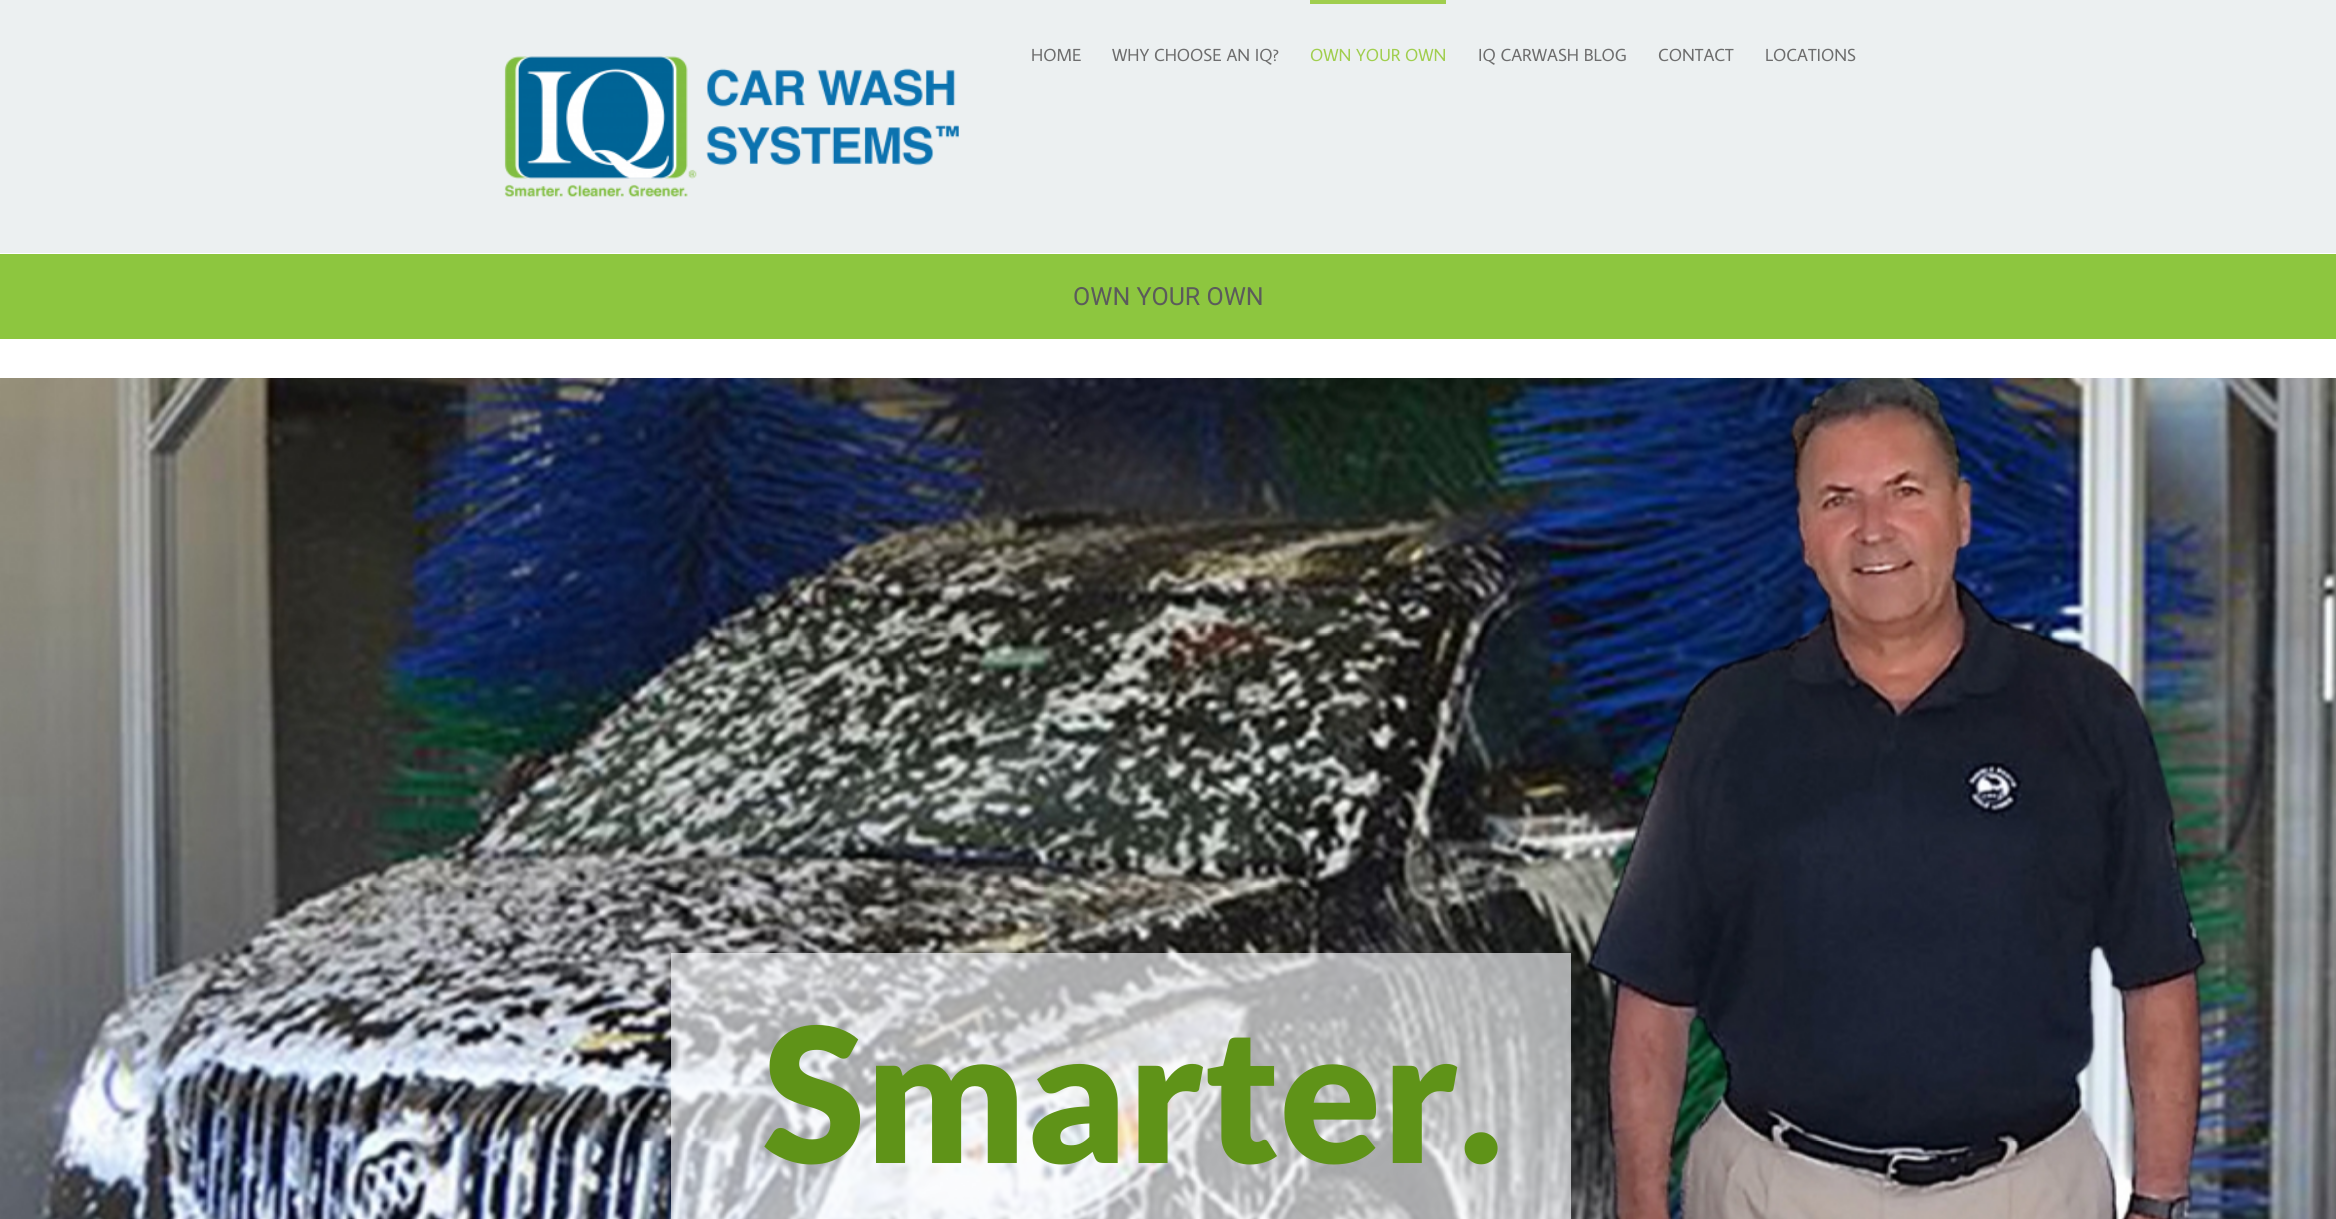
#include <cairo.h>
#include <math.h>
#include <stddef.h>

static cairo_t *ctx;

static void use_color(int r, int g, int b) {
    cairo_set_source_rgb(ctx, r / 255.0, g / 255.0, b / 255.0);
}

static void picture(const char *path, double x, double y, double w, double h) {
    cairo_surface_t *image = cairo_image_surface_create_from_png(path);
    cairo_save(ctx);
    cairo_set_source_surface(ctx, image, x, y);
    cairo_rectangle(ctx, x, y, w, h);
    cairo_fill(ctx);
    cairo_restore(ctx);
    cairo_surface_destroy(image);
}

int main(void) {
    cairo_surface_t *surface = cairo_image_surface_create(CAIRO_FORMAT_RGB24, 2336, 1219);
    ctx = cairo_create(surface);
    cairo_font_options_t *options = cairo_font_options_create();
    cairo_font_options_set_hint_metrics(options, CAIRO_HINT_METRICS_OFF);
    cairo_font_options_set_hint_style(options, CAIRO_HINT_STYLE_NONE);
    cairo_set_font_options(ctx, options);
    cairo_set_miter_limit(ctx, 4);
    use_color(255, 255, 255);
    cairo_paint(ctx);
    use_color(236, 240, 241);
    cairo_rectangle(ctx, 0, 0, 2336, 253);
    cairo_fill(ctx);
    picture("img1.png", 504, 56, 455, 141);
    cairo_select_font_face(ctx, "Average Sans", CAIRO_FONT_SLANT_NORMAL, CAIRO_FONT_WEIGHT_NORMAL);
    cairo_set_font_size(ctx, 17.5);
    use_color(109, 109, 109);
    cairo_move_to(ctx, 1031, 61);
    cairo_show_text(ctx, "HOME");
    cairo_move_to(ctx, 1112, 61);
    cairo_show_text(ctx, "WHY CHOOSE AN IQ?");
    use_color(160, 206, 78);
    cairo_rectangle(ctx, 1310, 0, 136, 4);
    cairo_fill(ctx);
    cairo_move_to(ctx, 1310, 61);
    cairo_show_text(ctx, "OWN YOUR OWN");
    use_color(109, 109, 109);
    cairo_move_to(ctx, 1478, 61);
    cairo_show_text(ctx, "IQ CARWASH BLOG");
    cairo_move_to(ctx, 1658, 61);
    cairo_show_text(ctx, "CONTACT");
    cairo_move_to(ctx, 1765, 61);
    cairo_show_text(ctx, "LOCATIONS");
    use_color(141, 198, 63);
    cairo_rectangle(ctx, 0, 254, 2336, 85);
    cairo_fill(ctx);
    cairo_select_font_face(ctx, "Roboto", CAIRO_FONT_SLANT_NORMAL, CAIRO_FONT_WEIGHT_NORMAL);
    cairo_set_font_size(ctx, 25);
    use_color(91, 91, 91);
    cairo_move_to(ctx, 1073, 305);
    cairo_show_text(ctx, "OWN YOUR OWN");
    picture("img2.png", 0, 378, 2336, 841);
    cairo_set_source_rgba(ctx, 0.976, 0.984, 0.992, 0.65);
    cairo_rectangle(ctx, 671, 953, 900, 266);
    cairo_fill(ctx);
    cairo_select_font_face(ctx, "Lato Black", CAIRO_FONT_SLANT_NORMAL, CAIRO_FONT_WEIGHT_NORMAL);
    cairo_set_font_size(ctx, 187.5);
    use_color(95, 147, 24);
    cairo_move_to(ctx, 763, 1163);
    cairo_show_text(ctx, "Smarter.");
    cairo_surface_write_to_png(surface, "result.png");
    cairo_font_options_destroy(options);
    cairo_destroy(ctx);
    cairo_surface_destroy(surface);
    return 0;
}
